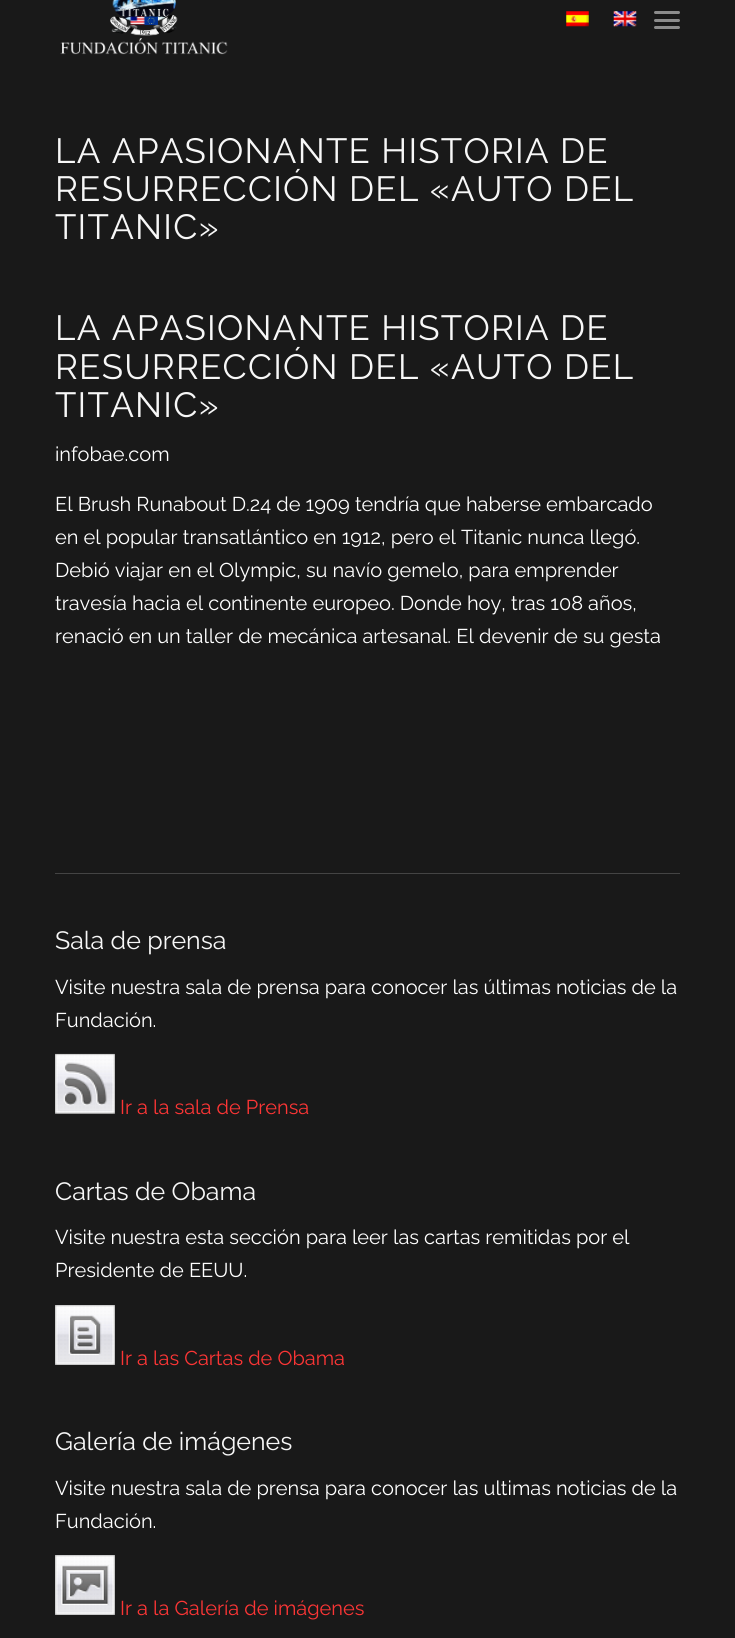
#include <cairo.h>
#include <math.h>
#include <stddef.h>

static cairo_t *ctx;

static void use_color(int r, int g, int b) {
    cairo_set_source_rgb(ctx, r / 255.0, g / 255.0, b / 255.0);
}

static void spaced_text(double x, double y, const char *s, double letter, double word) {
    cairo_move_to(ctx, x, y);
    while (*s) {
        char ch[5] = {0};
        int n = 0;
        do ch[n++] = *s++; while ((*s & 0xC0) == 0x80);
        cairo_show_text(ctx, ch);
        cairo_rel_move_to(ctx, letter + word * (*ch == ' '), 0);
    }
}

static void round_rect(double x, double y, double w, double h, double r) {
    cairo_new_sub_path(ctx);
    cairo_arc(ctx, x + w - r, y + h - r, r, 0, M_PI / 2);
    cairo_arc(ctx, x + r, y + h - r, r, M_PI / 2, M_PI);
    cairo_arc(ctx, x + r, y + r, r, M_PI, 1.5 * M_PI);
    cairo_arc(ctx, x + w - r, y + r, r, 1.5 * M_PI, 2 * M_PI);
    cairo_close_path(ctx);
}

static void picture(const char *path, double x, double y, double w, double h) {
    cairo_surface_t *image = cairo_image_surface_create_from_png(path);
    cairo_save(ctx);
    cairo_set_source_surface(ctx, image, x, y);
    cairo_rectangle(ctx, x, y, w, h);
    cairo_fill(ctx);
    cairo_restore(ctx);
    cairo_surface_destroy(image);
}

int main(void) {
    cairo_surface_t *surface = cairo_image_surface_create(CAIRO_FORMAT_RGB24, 735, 1638);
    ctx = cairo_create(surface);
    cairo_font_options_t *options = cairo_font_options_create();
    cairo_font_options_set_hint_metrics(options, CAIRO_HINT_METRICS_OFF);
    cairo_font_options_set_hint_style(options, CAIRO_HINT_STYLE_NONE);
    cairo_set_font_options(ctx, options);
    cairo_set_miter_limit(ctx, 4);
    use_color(25, 25, 25);
    cairo_paint(ctx);
    picture("img1.png", 60, 0, 168, 55);
    picture("img2.png", 566, 11, 23, 16);
    picture("img3.png", 613, 11, 24, 16);
    use_color(140, 140, 140);
    round_rect(654, 19, 26, 3, 1.5);
    cairo_fill(ctx);
    round_rect(654, 11, 26, 3, 1.5);
    cairo_fill(ctx);
    round_rect(654, 26, 26, 3, 1.5);
    cairo_fill(ctx);
    cairo_select_font_face(ctx, "Raleway Thin", CAIRO_FONT_SLANT_NORMAL, CAIRO_FONT_WEIGHT_NORMAL);
    cairo_set_font_size(ctx, 35);
    use_color(247, 247, 247);
    spaced_text(55, 163, "LA APASIONANTE HISTORIA DE", 1.25, 0);
    spaced_text(55, 201, "RESURRECCIÓN DEL «AUTO DEL", 1.25, 0);
    spaced_text(55, 239, "TITANIC»", 1.25, 0);
    spaced_text(55, 340, "LA APASIONANTE HISTORIA DE", 1.25, 0);
    spaced_text(55, 379, "RESURRECCIÓN DEL «AUTO DEL", 1.25, 0);
    spaced_text(55, 417, "TITANIC»", 1.25, 0);
    cairo_set_font_size(ctx, 20);
    use_color(255, 255, 255);
    cairo_move_to(ctx, 55, 461);
    cairo_show_text(ctx, "infobae.com");
    cairo_move_to(ctx, 55, 511);
    cairo_show_text(ctx, "El Brush Runabout D.24 de 1909 tendría que haberse embarcado");
    cairo_move_to(ctx, 55, 544);
    cairo_show_text(ctx, "en el popular transatlántico en 1912, pero el Titanic nunca llegó.");
    cairo_move_to(ctx, 55, 577);
    cairo_show_text(ctx, "Debió viajar en el Olympic, su navío gemelo, para emprender");
    cairo_move_to(ctx, 55, 610);
    cairo_show_text(ctx, "travesía hacia el continente europeo. Donde hoy, tras 108 años,");
    cairo_move_to(ctx, 55, 643);
    cairo_show_text(ctx, "renació en un taller de mecánica artesanal. El devenir de su gesta");
    use_color(68, 68, 68);
    cairo_rectangle(ctx, 55, 873, 625, 1);
    cairo_fill(ctx);
    cairo_set_font_size(ctx, 25);
    use_color(247, 247, 247);
    cairo_move_to(ctx, 55, 949);
    cairo_show_text(ctx, "Sala de prensa");
    cairo_set_font_size(ctx, 20);
    use_color(255, 255, 255);
    cairo_move_to(ctx, 55, 994);
    cairo_show_text(ctx, "Visite nuestra sala de prensa para conocer las últimas noticias de la");
    cairo_move_to(ctx, 55, 1027);
    cairo_show_text(ctx, "Fundación.");
    picture("img4.png", 55, 1053, 60, 61);
    use_color(252, 53, 53);
    cairo_move_to(ctx, 120, 1114);
    cairo_show_text(ctx, "Ir a la sala de Prensa");
    cairo_set_font_size(ctx, 25);
    use_color(247, 247, 247);
    cairo_move_to(ctx, 55, 1200);
    cairo_show_text(ctx, "Cartas de Obama");
    cairo_set_font_size(ctx, 20);
    use_color(255, 255, 255);
    cairo_move_to(ctx, 55, 1244);
    cairo_show_text(ctx, "Visite nuestra esta sección para leer las cartas remitidas por el");
    cairo_move_to(ctx, 55, 1277);
    cairo_show_text(ctx, "Presidente de EEUU.");
    picture("img5.png", 55, 1305, 60, 60);
    use_color(252, 53, 53);
    cairo_move_to(ctx, 120, 1365);
    cairo_show_text(ctx, "Ir a las Cartas de Obama");
    cairo_set_font_size(ctx, 25);
    use_color(247, 247, 247);
    cairo_move_to(ctx, 55, 1450);
    cairo_show_text(ctx, "Galería de imágenes");
    cairo_set_font_size(ctx, 20);
    use_color(255, 255, 255);
    cairo_move_to(ctx, 55, 1495);
    cairo_show_text(ctx, "Visite nuestra sala de prensa para conocer las ultimas noticias de la");
    cairo_move_to(ctx, 55, 1528);
    cairo_show_text(ctx, "Fundación.");
    picture("img6.png", 55, 1555, 60, 60);
    use_color(252, 53, 53);
    cairo_move_to(ctx, 120, 1615);
    cairo_show_text(ctx, "Ir a la Galería de imágenes");
    cairo_surface_write_to_png(surface, "result.png");
    cairo_font_options_destroy(options);
    cairo_destroy(ctx);
    cairo_surface_destroy(surface);
    return 0;
}
